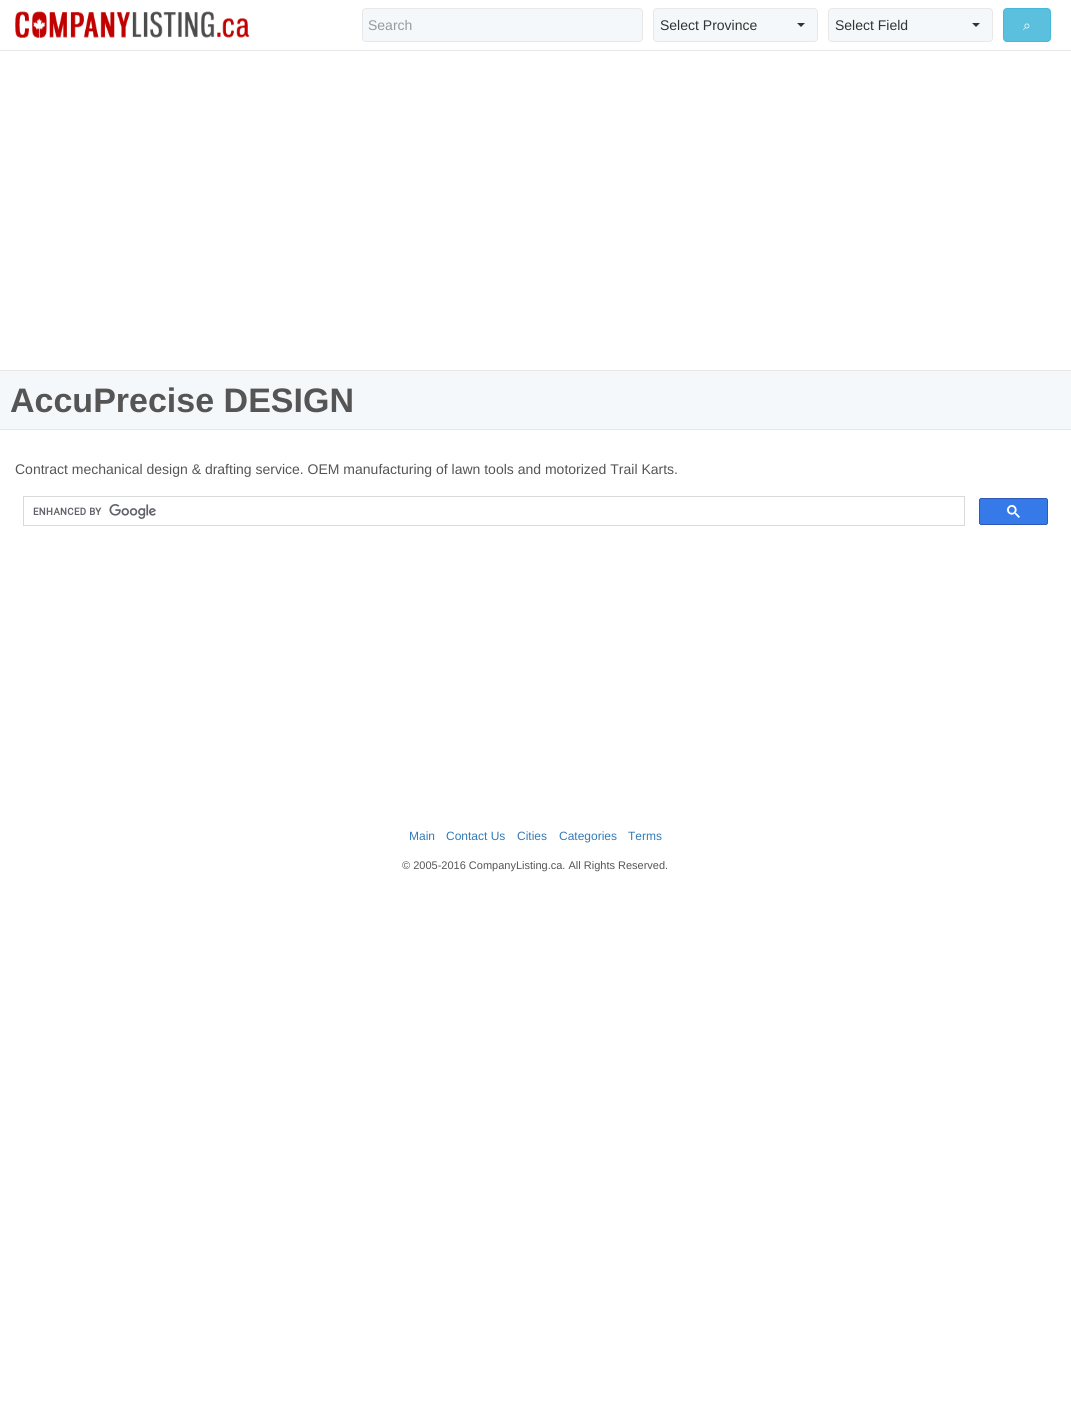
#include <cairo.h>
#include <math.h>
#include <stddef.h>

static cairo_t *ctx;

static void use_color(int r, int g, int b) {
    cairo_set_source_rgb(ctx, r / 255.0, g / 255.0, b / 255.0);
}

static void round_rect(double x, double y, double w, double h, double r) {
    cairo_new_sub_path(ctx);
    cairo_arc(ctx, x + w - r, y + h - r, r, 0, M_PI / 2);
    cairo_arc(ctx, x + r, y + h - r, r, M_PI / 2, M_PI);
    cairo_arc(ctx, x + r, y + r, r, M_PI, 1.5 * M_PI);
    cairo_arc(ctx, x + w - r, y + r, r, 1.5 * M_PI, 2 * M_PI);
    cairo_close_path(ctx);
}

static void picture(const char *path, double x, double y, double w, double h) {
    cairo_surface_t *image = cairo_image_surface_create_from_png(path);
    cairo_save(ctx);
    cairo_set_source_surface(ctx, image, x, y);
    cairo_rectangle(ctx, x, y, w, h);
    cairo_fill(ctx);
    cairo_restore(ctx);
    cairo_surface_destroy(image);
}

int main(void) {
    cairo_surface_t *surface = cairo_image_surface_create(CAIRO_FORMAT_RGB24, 1071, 1428);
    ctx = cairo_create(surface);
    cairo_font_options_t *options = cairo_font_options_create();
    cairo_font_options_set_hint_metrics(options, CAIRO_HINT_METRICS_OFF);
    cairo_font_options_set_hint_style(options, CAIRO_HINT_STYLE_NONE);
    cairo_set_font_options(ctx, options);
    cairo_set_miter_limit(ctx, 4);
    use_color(255, 255, 255);
    cairo_paint(ctx);
    use_color(231, 231, 231);
    cairo_rectangle(ctx, 0, 50, 1071, 1);
    cairo_fill(ctx);
    picture("img1.png", 15, 11, 235, 27);
    use_color(245, 248, 250);
    round_rect(362.5, 8.5, 280, 33, 3.5);
    cairo_fill_preserve(ctx);
    use_color(232, 232, 232);
    cairo_set_line_width(ctx, 1);
    cairo_stroke(ctx);
    cairo_select_font_face(ctx, "Liberation Sans", CAIRO_FONT_SLANT_NORMAL, CAIRO_FONT_WEIGHT_NORMAL);
    cairo_set_font_size(ctx, 14);
    use_color(153, 153, 153);
    cairo_move_to(ctx, 368, 30);
    cairo_show_text(ctx, "Search");
    use_color(245, 248, 250);
    round_rect(653.5, 8.5, 164, 33, 3.5);
    cairo_fill_preserve(ctx);
    use_color(232, 232, 232);
    cairo_stroke(ctx);
    use_color(51, 51, 51);
    cairo_move_to(ctx, 660, 30);
    cairo_show_text(ctx, "Select Province");
    cairo_new_path(ctx);
    cairo_move_to(ctx, 797, 23);
    cairo_line_to(ctx, 805, 23);
    cairo_line_to(ctx, 801, 27);
    cairo_close_path(ctx);
    cairo_fill(ctx);
    use_color(245, 248, 250);
    round_rect(828.5, 8.5, 164, 33, 3.5);
    cairo_fill_preserve(ctx);
    use_color(232, 232, 232);
    cairo_stroke(ctx);
    use_color(51, 51, 51);
    cairo_move_to(ctx, 835, 30);
    cairo_show_text(ctx, "Select Field");
    cairo_new_path(ctx);
    cairo_move_to(ctx, 972, 23);
    cairo_line_to(ctx, 980, 23);
    cairo_line_to(ctx, 976, 27);
    cairo_close_path(ctx);
    cairo_fill(ctx);
    use_color(91, 192, 222);
    round_rect(1003.5, 8.5, 47, 33, 3.5);
    cairo_fill_preserve(ctx);
    use_color(70, 184, 218);
    cairo_stroke(ctx);
    cairo_select_font_face(ctx, "FreeSerif", CAIRO_FONT_SLANT_NORMAL, CAIRO_FONT_WEIGHT_NORMAL);
    use_color(255, 255, 255);
    cairo_move_to(ctx, 1023, 30);
    cairo_show_text(ctx, "⌕");
    use_color(245, 248, 250);
    cairo_rectangle(ctx, 0, 371, 1071, 58);
    cairo_fill(ctx);
    use_color(231, 231, 231);
    cairo_rectangle(ctx, 0, 370, 1071, 1);
    cairo_fill(ctx);
    cairo_rectangle(ctx, 0, 429, 1071, 1);
    cairo_fill(ctx);
    cairo_select_font_face(ctx, "Liberation Sans", CAIRO_FONT_SLANT_NORMAL, CAIRO_FONT_WEIGHT_BOLD);
    cairo_set_font_size(ctx, 34);
    use_color(85, 85, 85);
    cairo_move_to(ctx, 10, 412);
    cairo_show_text(ctx, "AccuPrecise DESIGN");
    cairo_select_font_face(ctx, "Liberation Sans", CAIRO_FONT_SLANT_NORMAL, CAIRO_FONT_WEIGHT_NORMAL);
    cairo_set_font_size(ctx, 14);
    cairo_move_to(ctx, 15, 474);
    cairo_show_text(ctx, "Contract mechanical design & drafting service. OEM manufacturing of lawn tools and motorized Trail Karts.");
    picture("img2.png", 23, 496, 1025, 30);
    cairo_set_font_size(ctx, 12);
    use_color(51, 122, 183);
    cairo_move_to(ctx, 409, 840);
    cairo_show_text(ctx, "Main");
    cairo_move_to(ctx, 446, 840);
    cairo_show_text(ctx, "Contact Us");
    cairo_move_to(ctx, 517, 840);
    cairo_show_text(ctx, "Cities");
    cairo_move_to(ctx, 559, 840);
    cairo_show_text(ctx, "Categories");
    cairo_move_to(ctx, 628, 840);
    cairo_show_text(ctx, "Terms");
    cairo_set_font_size(ctx, 11);
    use_color(85, 85, 85);
    cairo_move_to(ctx, 402, 869);
    cairo_show_text(ctx, "© 2005-2016 CompanyListing.ca. All Rights Reserved.");
    cairo_surface_write_to_png(surface, "result.png");
    cairo_font_options_destroy(options);
    cairo_destroy(ctx);
    cairo_surface_destroy(surface);
    return 0;
}
